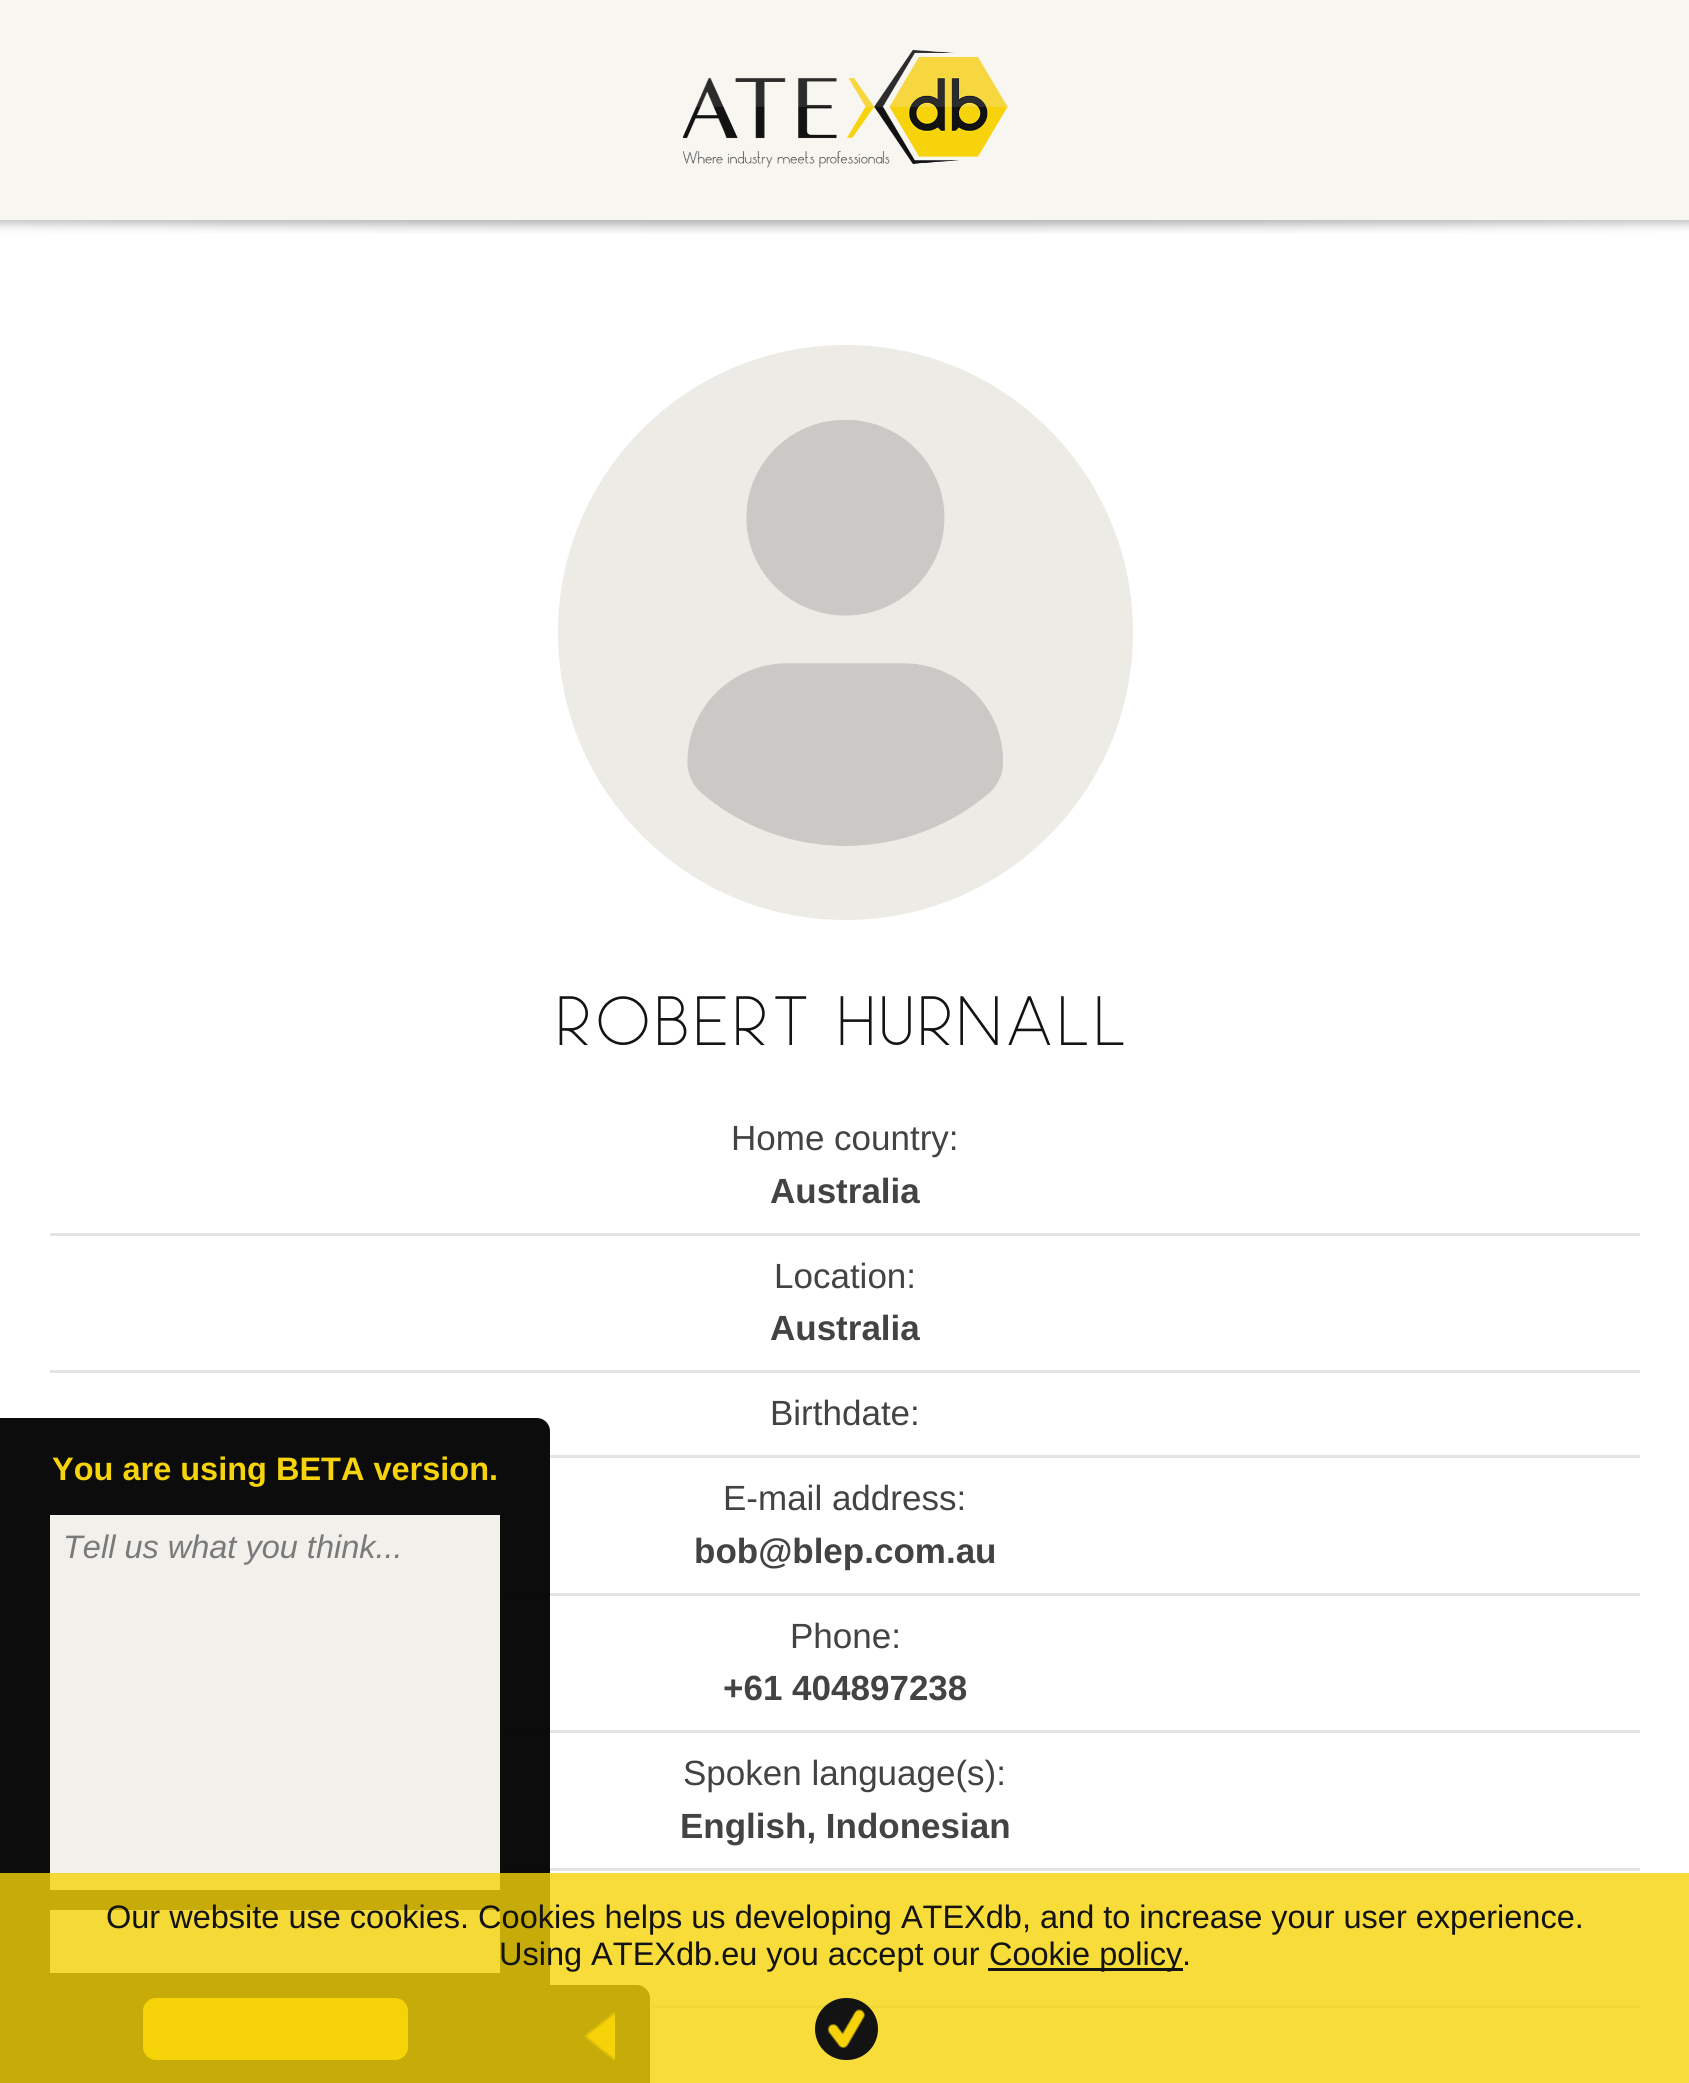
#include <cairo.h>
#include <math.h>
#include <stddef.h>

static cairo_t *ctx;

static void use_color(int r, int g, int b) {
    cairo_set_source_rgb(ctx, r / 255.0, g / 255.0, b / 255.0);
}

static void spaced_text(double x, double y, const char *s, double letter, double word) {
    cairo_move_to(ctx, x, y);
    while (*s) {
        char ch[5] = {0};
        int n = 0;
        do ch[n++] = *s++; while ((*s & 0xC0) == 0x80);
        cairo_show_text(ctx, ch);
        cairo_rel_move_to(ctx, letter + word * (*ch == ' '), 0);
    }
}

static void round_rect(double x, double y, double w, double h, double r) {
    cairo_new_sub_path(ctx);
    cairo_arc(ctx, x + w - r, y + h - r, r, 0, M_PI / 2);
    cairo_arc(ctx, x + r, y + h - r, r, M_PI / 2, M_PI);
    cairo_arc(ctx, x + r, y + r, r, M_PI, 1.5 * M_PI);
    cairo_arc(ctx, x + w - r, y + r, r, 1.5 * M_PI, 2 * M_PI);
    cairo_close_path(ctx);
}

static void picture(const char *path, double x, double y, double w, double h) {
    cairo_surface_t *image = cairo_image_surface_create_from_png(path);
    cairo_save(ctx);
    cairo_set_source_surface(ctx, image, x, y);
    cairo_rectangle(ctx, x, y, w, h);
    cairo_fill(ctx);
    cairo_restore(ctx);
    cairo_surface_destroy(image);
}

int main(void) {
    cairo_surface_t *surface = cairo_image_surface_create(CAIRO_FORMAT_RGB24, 1689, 2083);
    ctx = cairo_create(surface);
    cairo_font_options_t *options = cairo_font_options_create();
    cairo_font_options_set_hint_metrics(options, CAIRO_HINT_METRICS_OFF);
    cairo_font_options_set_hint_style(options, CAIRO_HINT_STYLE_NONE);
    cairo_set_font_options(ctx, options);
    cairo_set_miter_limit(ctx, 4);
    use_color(255, 255, 255);
    cairo_paint(ctx);
    use_color(248, 246, 241);
    cairo_rectangle(ctx, 0, 0, 1689, 220);
    cairo_fill(ctx);
    picture("img1.png", 683, 50, 325, 118);
    picture("img2.png", 0, 220, 1689, 14);
    use_color(229, 228, 227);
    cairo_rectangle(ctx, 50, 1455, 1590, 3);
    cairo_fill(ctx);
    cairo_rectangle(ctx, 500, 1593, 1140, 3);
    cairo_fill(ctx);
    cairo_rectangle(ctx, 500, 1730, 1140, 3);
    cairo_fill(ctx);
    cairo_rectangle(ctx, 500, 1868, 1140, 3);
    cairo_fill(ctx);
    cairo_rectangle(ctx, 50, 2005, 1590, 3);
    cairo_fill(ctx);
    cairo_set_source_rgba(ctx, 0, 0, 0, 0.95);
    cairo_new_path(ctx);
    cairo_move_to(ctx, 0, 1418);
    cairo_line_to(ctx, 537, 1418);
    cairo_curve_to(ctx, 544, 1418, 550, 1424, 550, 1431);
    cairo_line_to(ctx, 550, 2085);
    cairo_line_to(ctx, 0, 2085);
    cairo_close_path(ctx);
    cairo_fill(ctx);
    cairo_select_font_face(ctx, "Liberation Sans", CAIRO_FONT_SLANT_NORMAL, CAIRO_FONT_WEIGHT_BOLD);
    cairo_set_font_size(ctx, 32.5);
    use_color(246, 211, 10);
    cairo_move_to(ctx, 52, 1480);
    cairo_show_text(ctx, "You are using BETA version.");
    use_color(242, 240, 235);
    cairo_rectangle(ctx, 50, 1515, 450, 375);
    cairo_fill(ctx);
    cairo_select_font_face(ctx, "Liberation Sans", CAIRO_FONT_SLANT_ITALIC, CAIRO_FONT_WEIGHT_NORMAL);
    use_color(122, 122, 122);
    cairo_move_to(ctx, 63, 1558);
    cairo_show_text(ctx, "Tell us what you think...");
    use_color(242, 240, 235);
    cairo_rectangle(ctx, 50, 1910, 450, 63);
    cairo_fill(ctx);
    use_color(246, 211, 10);
    round_rect(143, 1998, 265, 62, 13);
    cairo_fill(ctx);
    cairo_set_source_rgba(ctx, 0, 0, 0, 0.95);
    cairo_new_path(ctx);
    cairo_move_to(ctx, 550, 1985);
    cairo_line_to(ctx, 637, 1985);
    cairo_curve_to(ctx, 644, 1985, 650, 1991, 650, 1998);
    cairo_line_to(ctx, 650, 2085);
    cairo_line_to(ctx, 550, 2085);
    cairo_close_path(ctx);
    cairo_fill(ctx);
    picture("img3.png", 585, 2012, 30, 48);
    use_color(236, 235, 230);
    cairo_arc(ctx, 845.5, 632.5, 287.5, 0, 2 * M_PI);
    cairo_fill(ctx);
    picture("img4.png", 687, 420, 316, 426);
    cairo_select_font_face(ctx, "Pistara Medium", CAIRO_FONT_SLANT_NORMAL, CAIRO_FONT_WEIGHT_NORMAL);
    cairo_set_font_size(ctx, 65);
    use_color(19, 19, 19);
    spaced_text(558, 1045, "ROBERT HURNALL", 7.5, 0);
    use_color(229, 228, 227);
    cairo_rectangle(ctx, 50, 1233, 1590, 3);
    cairo_fill(ctx);
    cairo_select_font_face(ctx, "Liberation Sans", CAIRO_FONT_SLANT_NORMAL, CAIRO_FONT_WEIGHT_NORMAL);
    cairo_set_font_size(ctx, 35);
    use_color(67, 67, 67);
    cairo_move_to(ctx, 731, 1150);
    cairo_show_text(ctx, "Home country:");
    cairo_select_font_face(ctx, "Liberation Sans", CAIRO_FONT_SLANT_NORMAL, CAIRO_FONT_WEIGHT_BOLD);
    cairo_move_to(ctx, 770, 1203);
    cairo_show_text(ctx, "Australia");
    use_color(229, 228, 227);
    cairo_rectangle(ctx, 50, 1370, 1590, 3);
    cairo_fill(ctx);
    cairo_select_font_face(ctx, "Liberation Sans", CAIRO_FONT_SLANT_NORMAL, CAIRO_FONT_WEIGHT_NORMAL);
    use_color(67, 67, 67);
    cairo_move_to(ctx, 774, 1288);
    cairo_show_text(ctx, "Location:");
    cairo_select_font_face(ctx, "Liberation Sans", CAIRO_FONT_SLANT_NORMAL, CAIRO_FONT_WEIGHT_BOLD);
    cairo_move_to(ctx, 770, 1340);
    cairo_show_text(ctx, "Australia");
    cairo_select_font_face(ctx, "Liberation Sans", CAIRO_FONT_SLANT_NORMAL, CAIRO_FONT_WEIGHT_NORMAL);
    cairo_move_to(ctx, 770, 1425);
    cairo_show_text(ctx, "Birthdate:");
    cairo_move_to(ctx, 723, 1510);
    cairo_show_text(ctx, "E-mail address:");
    cairo_select_font_face(ctx, "Liberation Sans", CAIRO_FONT_SLANT_NORMAL, CAIRO_FONT_WEIGHT_BOLD);
    cairo_move_to(ctx, 694, 1563);
    cairo_show_text(ctx, "bob@blep.com.au");
    cairo_select_font_face(ctx, "Liberation Sans", CAIRO_FONT_SLANT_NORMAL, CAIRO_FONT_WEIGHT_NORMAL);
    cairo_move_to(ctx, 790, 1648);
    cairo_show_text(ctx, "Phone:");
    cairo_select_font_face(ctx, "Liberation Sans", CAIRO_FONT_SLANT_NORMAL, CAIRO_FONT_WEIGHT_BOLD);
    cairo_move_to(ctx, 723, 1700);
    cairo_show_text(ctx, "+61 404897238");
    cairo_select_font_face(ctx, "Liberation Sans", CAIRO_FONT_SLANT_NORMAL, CAIRO_FONT_WEIGHT_NORMAL);
    cairo_move_to(ctx, 683, 1785);
    cairo_show_text(ctx, "Spoken language(s):");
    cairo_select_font_face(ctx, "Liberation Sans", CAIRO_FONT_SLANT_NORMAL, CAIRO_FONT_WEIGHT_BOLD);
    cairo_move_to(ctx, 680, 1838);
    cairo_show_text(ctx, "English, Indonesian");
    cairo_set_source_rgba(ctx, 0.965, 0.827, 0.039, 0.8);
    cairo_rectangle(ctx, 0, 1873, 1689, 210);
    cairo_fill(ctx);
    cairo_select_font_face(ctx, "Liberation Sans", CAIRO_FONT_SLANT_NORMAL, CAIRO_FONT_WEIGHT_NORMAL);
    cairo_set_font_size(ctx, 32.5);
    use_color(19, 19, 19);
    cairo_move_to(ctx, 106, 1928);
    cairo_show_text(ctx, "Our website use cookies. Cookies helps us developing ATEXdb, and to increase your user experience.");
    cairo_move_to(ctx, 499, 1965);
    cairo_show_text(ctx, "Using ATEXdb.eu you accept our");
    cairo_rectangle(ctx, 988, 1968, 195, 3);
    cairo_fill(ctx);
    cairo_move_to(ctx, 989, 1965);
    cairo_show_text(ctx, "Cookie policy");
    cairo_move_to(ctx, 1182, 1965);
    cairo_show_text(ctx, ".");
    round_rect(815, 1998, 63, 62, 31);
    cairo_fill(ctx);
    picture("img5.png", 827, 2009, 38, 39);
    cairo_surface_write_to_png(surface, "result.png");
    cairo_font_options_destroy(options);
    cairo_destroy(ctx);
    cairo_surface_destroy(surface);
    return 0;
}
